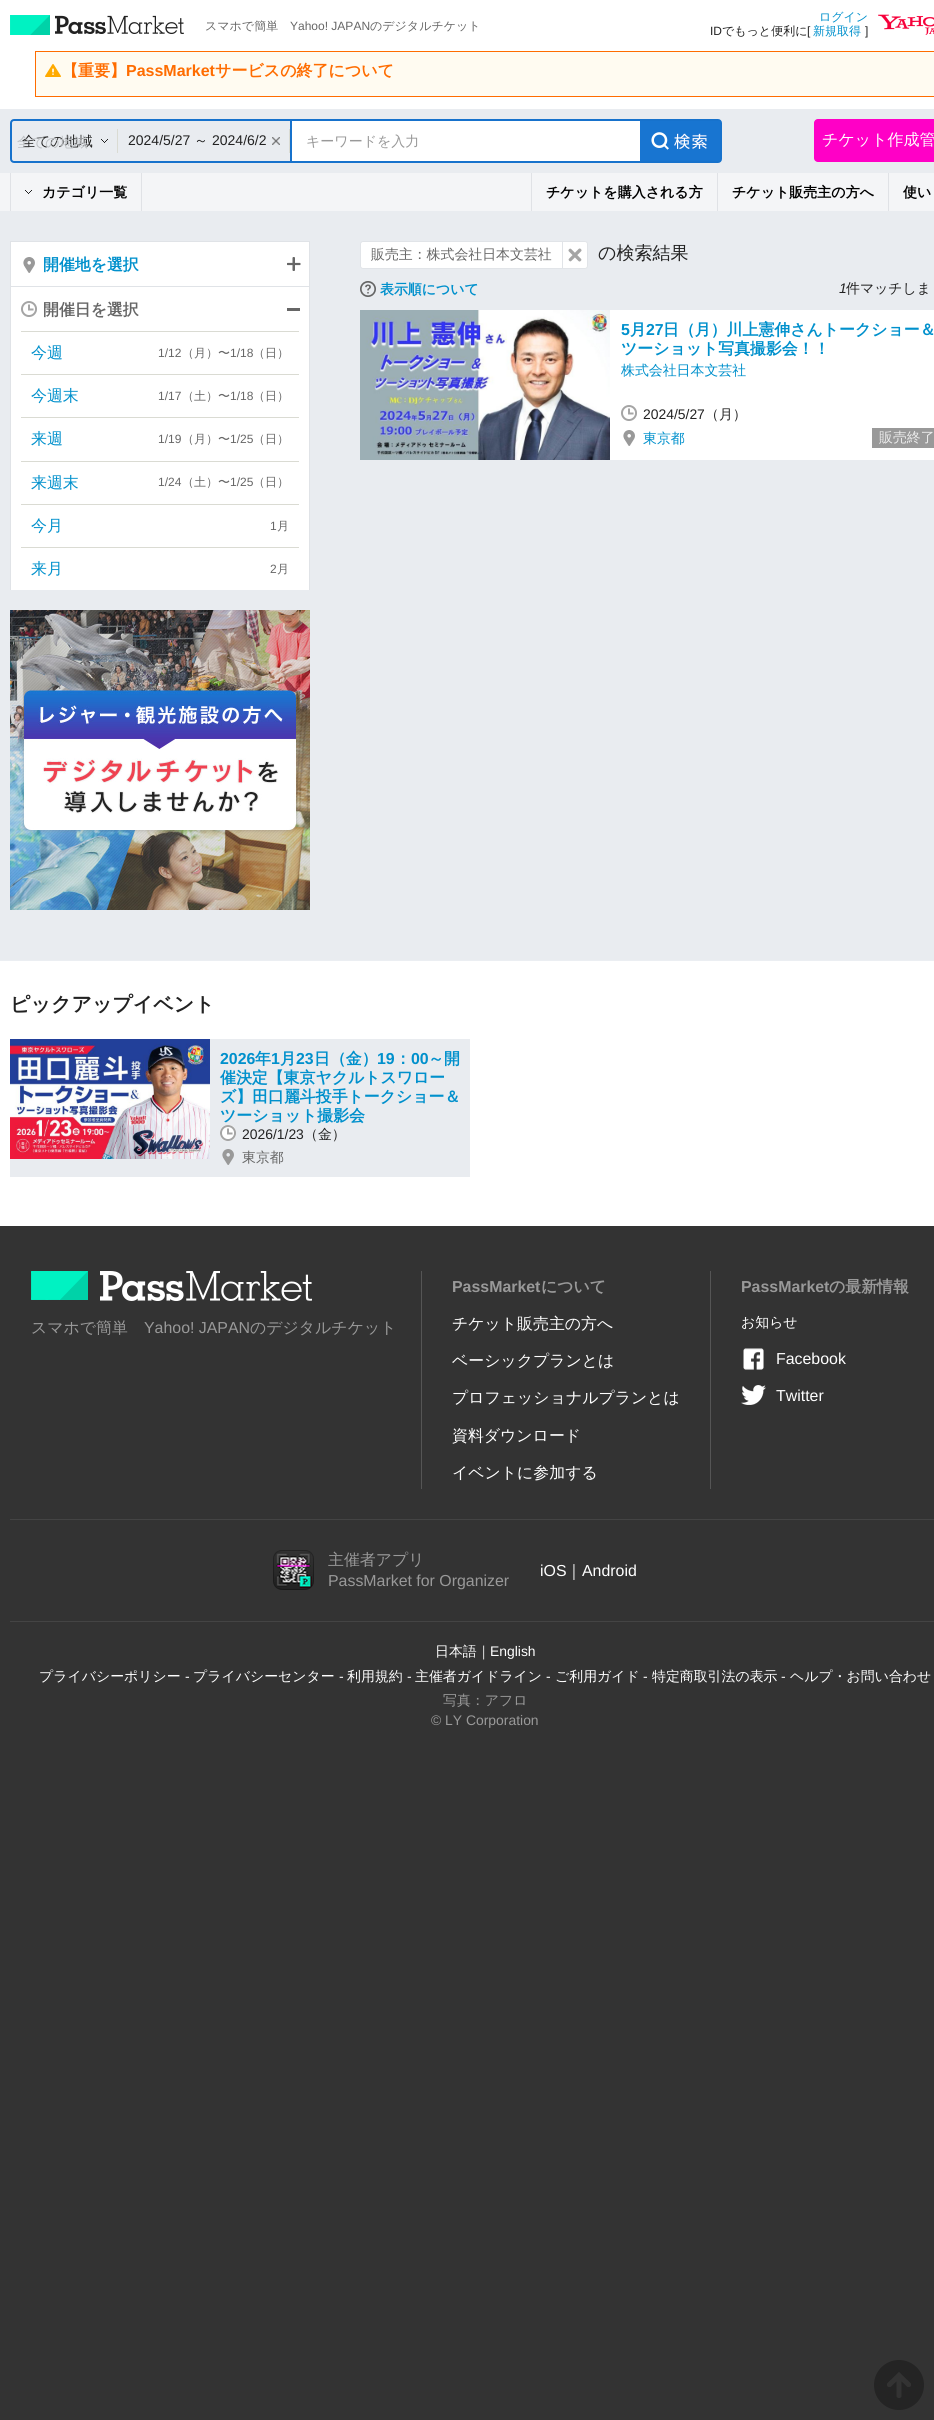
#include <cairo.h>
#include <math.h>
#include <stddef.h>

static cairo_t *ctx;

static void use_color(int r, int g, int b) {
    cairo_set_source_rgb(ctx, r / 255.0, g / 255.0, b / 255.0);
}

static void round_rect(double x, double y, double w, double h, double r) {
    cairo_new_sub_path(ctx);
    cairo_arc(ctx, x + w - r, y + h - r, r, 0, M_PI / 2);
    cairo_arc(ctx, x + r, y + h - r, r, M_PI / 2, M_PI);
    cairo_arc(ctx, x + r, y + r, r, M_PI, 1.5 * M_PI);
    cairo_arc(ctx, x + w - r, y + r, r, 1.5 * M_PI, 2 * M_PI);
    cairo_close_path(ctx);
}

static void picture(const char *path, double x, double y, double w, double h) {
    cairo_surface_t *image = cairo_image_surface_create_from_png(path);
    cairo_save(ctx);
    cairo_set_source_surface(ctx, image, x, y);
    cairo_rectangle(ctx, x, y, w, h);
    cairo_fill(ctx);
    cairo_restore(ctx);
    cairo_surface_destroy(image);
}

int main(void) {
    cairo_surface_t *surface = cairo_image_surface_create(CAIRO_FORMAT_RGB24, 934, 2420);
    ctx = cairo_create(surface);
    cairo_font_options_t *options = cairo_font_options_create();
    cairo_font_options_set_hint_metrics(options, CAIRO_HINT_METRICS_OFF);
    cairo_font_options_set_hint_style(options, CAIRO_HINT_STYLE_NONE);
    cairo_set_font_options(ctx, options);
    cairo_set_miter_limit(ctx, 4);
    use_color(51, 51, 51);
    cairo_paint(ctx);
    use_color(255, 255, 255);
    cairo_rectangle(ctx, 0, 0, 934, 109);
    cairo_fill(ctx);
    picture("img1.png", 10, 15, 174, 20);
    cairo_select_font_face(ctx, "WenQuanYi Zen Hei Medium", CAIRO_FONT_SLANT_NORMAL, CAIRO_FONT_WEIGHT_NORMAL);
    cairo_set_font_size(ctx, 12);
    use_color(102, 102, 102);
    cairo_move_to(ctx, 205, 30);
    cairo_show_text(ctx, "スマホで簡単");
    cairo_select_font_face(ctx, "Liberation Sans", CAIRO_FONT_SLANT_NORMAL, CAIRO_FONT_WEIGHT_NORMAL);
    cairo_move_to(ctx, 290, 30);
    cairo_show_text(ctx, "Yahoo! JAPAN");
    cairo_select_font_face(ctx, "WenQuanYi Zen Hei Medium", CAIRO_FONT_SLANT_NORMAL, CAIRO_FONT_WEIGHT_NORMAL);
    cairo_move_to(ctx, 370, 30);
    cairo_show_text(ctx, "のデジタルチケット");
    use_color(0, 144, 204);
    cairo_move_to(ctx, 819, 21);
    cairo_show_text(ctx, "ログイン");
    cairo_select_font_face(ctx, "Liberation Sans", CAIRO_FONT_SLANT_NORMAL, CAIRO_FONT_WEIGHT_NORMAL);
    use_color(34, 34, 34);
    cairo_move_to(ctx, 710, 35);
    cairo_show_text(ctx, "ID");
    cairo_select_font_face(ctx, "WenQuanYi Zen Hei Medium", CAIRO_FONT_SLANT_NORMAL, CAIRO_FONT_WEIGHT_NORMAL);
    cairo_move_to(ctx, 722, 35);
    cairo_show_text(ctx, "でもっと便利に");
    cairo_select_font_face(ctx, "Liberation Sans", CAIRO_FONT_SLANT_NORMAL, CAIRO_FONT_WEIGHT_NORMAL);
    cairo_move_to(ctx, 807, 35);
    cairo_show_text(ctx, "[");
    cairo_select_font_face(ctx, "WenQuanYi Zen Hei Medium", CAIRO_FONT_SLANT_NORMAL, CAIRO_FONT_WEIGHT_NORMAL);
    use_color(0, 144, 204);
    cairo_move_to(ctx, 813, 35);
    cairo_show_text(ctx, "新規取得");
    cairo_select_font_face(ctx, "Liberation Sans", CAIRO_FONT_SLANT_NORMAL, CAIRO_FONT_WEIGHT_NORMAL);
    use_color(34, 34, 34);
    cairo_move_to(ctx, 865, 35);
    cairo_show_text(ctx, "]");
    picture("img2.png", 878, 14, 56, 21);
    use_color(255, 251, 241);
    cairo_rectangle(ctx, 35.5, 51.5, 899, 45);
    cairo_fill_preserve(ctx);
    use_color(255, 108, 0);
    cairo_set_line_width(ctx, 1);
    cairo_stroke(ctx);
    picture("img3.png", 45, 64, 16, 13);
    cairo_select_font_face(ctx, "WenQuanYi Zen Hei", CAIRO_FONT_SLANT_NORMAL, CAIRO_FONT_WEIGHT_BOLD);
    cairo_set_font_size(ctx, 16);
    cairo_move_to(ctx, 62, 76);
    cairo_show_text(ctx, "【重要】");
    cairo_select_font_face(ctx, "Liberation Sans", CAIRO_FONT_SLANT_NORMAL, CAIRO_FONT_WEIGHT_BOLD);
    cairo_move_to(ctx, 126, 76);
    cairo_show_text(ctx, "PassMarket");
    cairo_select_font_face(ctx, "WenQuanYi Zen Hei", CAIRO_FONT_SLANT_NORMAL, CAIRO_FONT_WEIGHT_BOLD);
    cairo_move_to(ctx, 215, 76);
    cairo_show_text(ctx, "サービスの終了について");
    use_color(233, 236, 240);
    cairo_rectangle(ctx, 0, 109, 934, 64);
    cairo_fill(ctx);
    round_rect(11, 120, 710, 42, 3);
    use_color(23, 114, 204);
    cairo_set_line_width(ctx, 2);
    cairo_stroke(ctx);
    picture("img4.png", 101, 139, 7, 4);
    cairo_select_font_face(ctx, "WenQuanYi Zen Hei Medium", CAIRO_FONT_SLANT_NORMAL, CAIRO_FONT_WEIGHT_NORMAL);
    cairo_set_font_size(ctx, 14);
    use_color(34, 34, 34);
    cairo_move_to(ctx, 22, 146);
    cairo_show_text(ctx, "全ての地域");
    use_color(218, 219, 211);
    cairo_rectangle(ctx, 117, 129, 1, 24);
    cairo_fill(ctx);
    use_color(191, 194, 197);
    cairo_move_to(ctx, 17, 147);
    cairo_show_text(ctx, "全ての地域");
    cairo_select_font_face(ctx, "Liberation Sans", CAIRO_FONT_SLANT_NORMAL, CAIRO_FONT_WEIGHT_NORMAL);
    use_color(34, 34, 34);
    cairo_move_to(ctx, 128, 145);
    cairo_show_text(ctx, "2024/5/27");
    cairo_select_font_face(ctx, "WenQuanYi Zen Hei Medium", CAIRO_FONT_SLANT_NORMAL, CAIRO_FONT_WEIGHT_NORMAL);
    cairo_move_to(ctx, 194, 145);
    cairo_show_text(ctx, "～");
    cairo_select_font_face(ctx, "Liberation Sans", CAIRO_FONT_SLANT_NORMAL, CAIRO_FONT_WEIGHT_NORMAL);
    cairo_move_to(ctx, 212, 145);
    cairo_show_text(ctx, "2024/6/2");
    picture("img5.png", 272, 137, 8, 8);
    use_color(218, 219, 211);
    cairo_rectangle(ctx, 289, 129, 1, 24);
    cairo_fill(ctx);
    use_color(255, 255, 255);
    cairo_rectangle(ctx, 292, 121, 348, 40);
    cairo_fill(ctx);
    use_color(23, 114, 204);
    cairo_rectangle(ctx, 290, 121, 2, 40);
    cairo_fill(ctx);
    cairo_select_font_face(ctx, "WenQuanYi Zen Hei Medium", CAIRO_FONT_SLANT_NORMAL, CAIRO_FONT_WEIGHT_NORMAL);
    use_color(153, 153, 153);
    cairo_move_to(ctx, 306, 146);
    cairo_show_text(ctx, "キーワードを入力");
    picture("img6.png", 640, 121, 80, 40);
    use_color(255, 0, 198);
    round_rect(814, 119, 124, 43, 4);
    cairo_fill(ctx);
    cairo_set_font_size(ctx, 16);
    use_color(255, 255, 255);
    cairo_move_to(ctx, 822, 145);
    cairo_show_text(ctx, "チケット作成管");
    use_color(244, 245, 247);
    cairo_rectangle(ctx, 0, 173, 934, 38);
    cairo_fill(ctx);
    use_color(224, 226, 230);
    cairo_rectangle(ctx, 141, 173, 1, 38);
    cairo_fill(ctx);
    cairo_rectangle(ctx, 10, 173, 1, 38);
    cairo_fill(ctx);
    picture("img7.png", 25, 190, 7, 4);
    cairo_select_font_face(ctx, "WenQuanYi Zen Hei", CAIRO_FONT_SLANT_NORMAL, CAIRO_FONT_WEIGHT_BOLD);
    cairo_set_font_size(ctx, 14);
    use_color(0, 0, 0);
    cairo_move_to(ctx, 42, 197);
    cairo_show_text(ctx, "カテゴリ一覧");
    use_color(224, 226, 230);
    cairo_rectangle(ctx, 717, 173, 1, 38);
    cairo_fill(ctx);
    cairo_rectangle(ctx, 531, 173, 1, 38);
    cairo_fill(ctx);
    use_color(0, 0, 0);
    cairo_move_to(ctx, 546, 197);
    cairo_show_text(ctx, "チケットを購入される方");
    use_color(224, 226, 230);
    cairo_rectangle(ctx, 888, 173, 1, 38);
    cairo_fill(ctx);
    use_color(0, 0, 0);
    cairo_move_to(ctx, 732, 197);
    cairo_show_text(ctx, "チケット販売主の方へ");
    cairo_move_to(ctx, 903, 197);
    cairo_show_text(ctx, "使い");
    use_color(255, 255, 255);
    cairo_rectangle(ctx, 0, 961, 934, 265);
    cairo_fill(ctx);
    use_color(233, 236, 240);
    cairo_rectangle(ctx, 0, 211, 934, 749);
    cairo_fill(ctx);
    use_color(235, 238, 242);
    cairo_rectangle(ctx, 0, 960, 934, 1);
    cairo_fill(ctx);
    use_color(255, 255, 255);
    cairo_rectangle(ctx, 11, 242, 298, 44);
    cairo_fill(ctx);
    use_color(224, 227, 231);
    cairo_rectangle(ctx, 10, 241, 300, 1);
    cairo_fill(ctx);
    cairo_rectangle(ctx, 309, 241, 1, 45);
    cairo_fill(ctx);
    cairo_rectangle(ctx, 10, 241, 1, 45);
    cairo_fill(ctx);
    picture("img8.png", 287, 257, 14, 14);
    picture("img9.png", 23, 257, 12, 16);
    cairo_set_font_size(ctx, 15.9);
    use_color(0, 144, 204);
    cairo_move_to(ctx, 43, 270);
    cairo_show_text(ctx, "開催地を選択");
    use_color(255, 255, 255);
    cairo_rectangle(ctx, 11, 287, 298, 303);
    cairo_fill(ctx);
    use_color(224, 227, 231);
    cairo_rectangle(ctx, 10, 286, 300, 1);
    cairo_fill(ctx);
    cairo_rectangle(ctx, 309, 286, 1, 304);
    cairo_fill(ctx);
    cairo_rectangle(ctx, 10, 286, 1, 304);
    cairo_fill(ctx);
    use_color(102, 102, 102);
    cairo_rectangle(ctx, 287, 308, 13, 3);
    cairo_fill(ctx);
    picture("img10.png", 21, 301, 16, 16);
    cairo_move_to(ctx, 43, 315);
    cairo_show_text(ctx, "開催日を選択");
    use_color(218, 219, 211);
    cairo_rectangle(ctx, 21, 331, 278, 1);
    cairo_fill(ctx);
    cairo_select_font_face(ctx, "WenQuanYi Zen Hei Medium", CAIRO_FONT_SLANT_NORMAL, CAIRO_FONT_WEIGHT_NORMAL);
    use_color(0, 144, 204);
    cairo_move_to(ctx, 31, 358);
    cairo_show_text(ctx, "今週");
    cairo_select_font_face(ctx, "Liberation Sans", CAIRO_FONT_SLANT_NORMAL, CAIRO_FONT_WEIGHT_NORMAL);
    cairo_set_font_size(ctx, 12);
    use_color(102, 102, 102);
    cairo_move_to(ctx, 158, 357);
    cairo_show_text(ctx, "1/12");
    cairo_select_font_face(ctx, "WenQuanYi Zen Hei Medium", CAIRO_FONT_SLANT_NORMAL, CAIRO_FONT_WEIGHT_NORMAL);
    cairo_move_to(ctx, 182, 357);
    cairo_show_text(ctx, "（月）〜");
    cairo_select_font_face(ctx, "Liberation Sans", CAIRO_FONT_SLANT_NORMAL, CAIRO_FONT_WEIGHT_NORMAL);
    cairo_move_to(ctx, 230, 357);
    cairo_show_text(ctx, "1/18");
    cairo_select_font_face(ctx, "WenQuanYi Zen Hei Medium", CAIRO_FONT_SLANT_NORMAL, CAIRO_FONT_WEIGHT_NORMAL);
    cairo_move_to(ctx, 253, 357);
    cairo_show_text(ctx, "（日）");
    use_color(218, 219, 211);
    cairo_rectangle(ctx, 21, 374, 278, 1);
    cairo_fill(ctx);
    cairo_set_font_size(ctx, 15.9);
    use_color(0, 144, 204);
    cairo_move_to(ctx, 31, 401);
    cairo_show_text(ctx, "今週末");
    cairo_select_font_face(ctx, "Liberation Sans", CAIRO_FONT_SLANT_NORMAL, CAIRO_FONT_WEIGHT_NORMAL);
    cairo_set_font_size(ctx, 12);
    use_color(102, 102, 102);
    cairo_move_to(ctx, 158, 400);
    cairo_show_text(ctx, "1/17");
    cairo_select_font_face(ctx, "WenQuanYi Zen Hei Medium", CAIRO_FONT_SLANT_NORMAL, CAIRO_FONT_WEIGHT_NORMAL);
    cairo_move_to(ctx, 182, 400);
    cairo_show_text(ctx, "（土）〜");
    cairo_select_font_face(ctx, "Liberation Sans", CAIRO_FONT_SLANT_NORMAL, CAIRO_FONT_WEIGHT_NORMAL);
    cairo_move_to(ctx, 230, 400);
    cairo_show_text(ctx, "1/18");
    cairo_select_font_face(ctx, "WenQuanYi Zen Hei Medium", CAIRO_FONT_SLANT_NORMAL, CAIRO_FONT_WEIGHT_NORMAL);
    cairo_move_to(ctx, 253, 400);
    cairo_show_text(ctx, "（日）");
    use_color(218, 219, 211);
    cairo_rectangle(ctx, 21, 417, 278, 1);
    cairo_fill(ctx);
    cairo_set_font_size(ctx, 15.9);
    use_color(0, 144, 204);
    cairo_move_to(ctx, 31, 444);
    cairo_show_text(ctx, "来週");
    cairo_select_font_face(ctx, "Liberation Sans", CAIRO_FONT_SLANT_NORMAL, CAIRO_FONT_WEIGHT_NORMAL);
    cairo_set_font_size(ctx, 12);
    use_color(102, 102, 102);
    cairo_move_to(ctx, 158, 443);
    cairo_show_text(ctx, "1/19");
    cairo_select_font_face(ctx, "WenQuanYi Zen Hei Medium", CAIRO_FONT_SLANT_NORMAL, CAIRO_FONT_WEIGHT_NORMAL);
    cairo_move_to(ctx, 182, 443);
    cairo_show_text(ctx, "（月）〜");
    cairo_select_font_face(ctx, "Liberation Sans", CAIRO_FONT_SLANT_NORMAL, CAIRO_FONT_WEIGHT_NORMAL);
    cairo_move_to(ctx, 230, 443);
    cairo_show_text(ctx, "1/25");
    cairo_select_font_face(ctx, "WenQuanYi Zen Hei Medium", CAIRO_FONT_SLANT_NORMAL, CAIRO_FONT_WEIGHT_NORMAL);
    cairo_move_to(ctx, 253, 443);
    cairo_show_text(ctx, "（日）");
    use_color(218, 219, 211);
    cairo_rectangle(ctx, 21, 461, 278, 1);
    cairo_fill(ctx);
    cairo_set_font_size(ctx, 15.9);
    use_color(0, 144, 204);
    cairo_move_to(ctx, 31, 488);
    cairo_show_text(ctx, "来週末");
    cairo_select_font_face(ctx, "Liberation Sans", CAIRO_FONT_SLANT_NORMAL, CAIRO_FONT_WEIGHT_NORMAL);
    cairo_set_font_size(ctx, 12);
    use_color(102, 102, 102);
    cairo_move_to(ctx, 158, 486);
    cairo_show_text(ctx, "1/24");
    cairo_select_font_face(ctx, "WenQuanYi Zen Hei Medium", CAIRO_FONT_SLANT_NORMAL, CAIRO_FONT_WEIGHT_NORMAL);
    cairo_move_to(ctx, 182, 486);
    cairo_show_text(ctx, "（土）〜");
    cairo_select_font_face(ctx, "Liberation Sans", CAIRO_FONT_SLANT_NORMAL, CAIRO_FONT_WEIGHT_NORMAL);
    cairo_move_to(ctx, 230, 486);
    cairo_show_text(ctx, "1/25");
    cairo_select_font_face(ctx, "WenQuanYi Zen Hei Medium", CAIRO_FONT_SLANT_NORMAL, CAIRO_FONT_WEIGHT_NORMAL);
    cairo_move_to(ctx, 253, 486);
    cairo_show_text(ctx, "（日）");
    use_color(218, 219, 211);
    cairo_rectangle(ctx, 21, 504, 278, 1);
    cairo_fill(ctx);
    cairo_set_font_size(ctx, 15.9);
    use_color(0, 144, 204);
    cairo_move_to(ctx, 31, 531);
    cairo_show_text(ctx, "今月");
    cairo_select_font_face(ctx, "Liberation Sans", CAIRO_FONT_SLANT_NORMAL, CAIRO_FONT_WEIGHT_NORMAL);
    cairo_set_font_size(ctx, 12);
    use_color(102, 102, 102);
    cairo_move_to(ctx, 270, 530);
    cairo_show_text(ctx, "1");
    cairo_select_font_face(ctx, "WenQuanYi Zen Hei Medium", CAIRO_FONT_SLANT_NORMAL, CAIRO_FONT_WEIGHT_NORMAL);
    cairo_move_to(ctx, 277, 530);
    cairo_show_text(ctx, "月");
    use_color(218, 219, 211);
    cairo_rectangle(ctx, 21, 547, 278, 1);
    cairo_fill(ctx);
    cairo_set_font_size(ctx, 15.9);
    use_color(0, 144, 204);
    cairo_move_to(ctx, 31, 574);
    cairo_show_text(ctx, "来月");
    cairo_select_font_face(ctx, "Liberation Sans", CAIRO_FONT_SLANT_NORMAL, CAIRO_FONT_WEIGHT_NORMAL);
    cairo_set_font_size(ctx, 12);
    use_color(102, 102, 102);
    cairo_move_to(ctx, 270, 573);
    cairo_show_text(ctx, "2");
    cairo_select_font_face(ctx, "WenQuanYi Zen Hei Medium", CAIRO_FONT_SLANT_NORMAL, CAIRO_FONT_WEIGHT_NORMAL);
    cairo_move_to(ctx, 277, 573);
    cairo_show_text(ctx, "月");
    picture("img11.png", 10, 610, 300, 300);
    use_color(255, 255, 255);
    round_rect(360.5, 241.5, 227, 27, 2.5);
    cairo_fill_preserve(ctx);
    use_color(225, 228, 232);
    cairo_set_line_width(ctx, 1);
    cairo_stroke(ctx);
    cairo_set_font_size(ctx, 13.9);
    use_color(102, 102, 102);
    cairo_move_to(ctx, 371, 259);
    cairo_show_text(ctx, "販売主：株式会社日本文芸社");
    use_color(225, 228, 232);
    cairo_rectangle(ctx, 562, 242, 1, 26);
    cairo_fill(ctx);
    picture("img12.png", 568, 248, 14, 14);
    cairo_set_font_size(ctx, 18);
    use_color(34, 34, 34);
    cairo_move_to(ctx, 598, 259);
    cairo_show_text(ctx, "の検索結果");
    picture("img13.png", 360, 281, 16, 16);
    cairo_select_font_face(ctx, "WenQuanYi Zen Hei", CAIRO_FONT_SLANT_NORMAL, CAIRO_FONT_WEIGHT_BOLD);
    cairo_set_font_size(ctx, 13.9);
    use_color(0, 144, 204);
    cairo_move_to(ctx, 380, 294);
    cairo_show_text(ctx, "表示順について");
    cairo_select_font_face(ctx, "Liberation Sans", CAIRO_FONT_SLANT_ITALIC, CAIRO_FONT_WEIGHT_NORMAL);
    use_color(34, 34, 34);
    cairo_move_to(ctx, 839, 293);
    cairo_show_text(ctx, "1");
    cairo_select_font_face(ctx, "WenQuanYi Zen Hei Medium", CAIRO_FONT_SLANT_NORMAL, CAIRO_FONT_WEIGHT_NORMAL);
    cairo_move_to(ctx, 846, 293);
    cairo_show_text(ctx, "件マッチしま");
    use_color(255, 255, 255);
    cairo_rectangle(ctx, 610, 310, 324, 150);
    cairo_fill(ctx);
    picture("img14.png", 360, 310, 250, 150);
    cairo_select_font_face(ctx, "Liberation Sans", CAIRO_FONT_SLANT_NORMAL, CAIRO_FONT_WEIGHT_BOLD);
    cairo_set_font_size(ctx, 15.9);
    use_color(0, 144, 204);
    cairo_move_to(ctx, 621, 335);
    cairo_show_text(ctx, "5");
    cairo_select_font_face(ctx, "WenQuanYi Zen Hei", CAIRO_FONT_SLANT_NORMAL, CAIRO_FONT_WEIGHT_BOLD);
    cairo_move_to(ctx, 630, 335);
    cairo_show_text(ctx, "月");
    cairo_select_font_face(ctx, "Liberation Sans", CAIRO_FONT_SLANT_NORMAL, CAIRO_FONT_WEIGHT_BOLD);
    cairo_move_to(ctx, 646, 335);
    cairo_show_text(ctx, "27");
    cairo_select_font_face(ctx, "WenQuanYi Zen Hei", CAIRO_FONT_SLANT_NORMAL, CAIRO_FONT_WEIGHT_BOLD);
    cairo_move_to(ctx, 663, 335);
    cairo_show_text(ctx, "日（月）川上憲伸さんトークショー＆");
    cairo_move_to(ctx, 621, 354);
    cairo_show_text(ctx, "ツーショット写真撮影会！！");
    cairo_select_font_face(ctx, "WenQuanYi Zen Hei Medium", CAIRO_FONT_SLANT_NORMAL, CAIRO_FONT_WEIGHT_NORMAL);
    cairo_set_font_size(ctx, 13.9);
    cairo_move_to(ctx, 621, 375);
    cairo_show_text(ctx, "株式会社日本文芸社");
    picture("img10.png", 621, 405, 16, 16);
    cairo_select_font_face(ctx, "Liberation Sans", CAIRO_FONT_SLANT_NORMAL, CAIRO_FONT_WEIGHT_NORMAL);
    use_color(34, 34, 34);
    cairo_move_to(ctx, 643, 419);
    cairo_show_text(ctx, "2024/5/27");
    cairo_select_font_face(ctx, "WenQuanYi Zen Hei Medium", CAIRO_FONT_SLANT_NORMAL, CAIRO_FONT_WEIGHT_NORMAL);
    cairo_move_to(ctx, 705, 419);
    cairo_show_text(ctx, "（月）");
    picture("img9.png", 623, 430, 12, 16);
    use_color(0, 144, 204);
    cairo_move_to(ctx, 643, 443);
    cairo_show_text(ctx, "東京都");
    use_color(153, 153, 153);
    cairo_rectangle(ctx, 872, 428, 62, 20);
    cairo_fill(ctx);
    use_color(236, 236, 236);
    cairo_move_to(ctx, 879, 442);
    cairo_show_text(ctx, "販売終了");
    cairo_select_font_face(ctx, "WenQuanYi Zen Hei", CAIRO_FONT_SLANT_NORMAL, CAIRO_FONT_WEIGHT_BOLD);
    cairo_set_font_size(ctx, 20);
    use_color(34, 34, 34);
    cairo_move_to(ctx, 10, 1011);
    cairo_show_text(ctx, "ピックアップイベント");
    use_color(233, 236, 240);
    cairo_rectangle(ctx, 10, 1039, 460, 138);
    cairo_fill(ctx);
    picture("img15.png", 10, 1039, 200, 120);
    cairo_select_font_face(ctx, "Liberation Sans", CAIRO_FONT_SLANT_NORMAL, CAIRO_FONT_WEIGHT_BOLD);
    cairo_set_font_size(ctx, 15.9);
    use_color(0, 144, 204);
    cairo_move_to(ctx, 220, 1064);
    cairo_show_text(ctx, "2026");
    cairo_select_font_face(ctx, "WenQuanYi Zen Hei", CAIRO_FONT_SLANT_NORMAL, CAIRO_FONT_WEIGHT_BOLD);
    cairo_move_to(ctx, 255, 1064);
    cairo_show_text(ctx, "年");
    cairo_select_font_face(ctx, "Liberation Sans", CAIRO_FONT_SLANT_NORMAL, CAIRO_FONT_WEIGHT_BOLD);
    cairo_move_to(ctx, 271, 1064);
    cairo_show_text(ctx, "1");
    cairo_select_font_face(ctx, "WenQuanYi Zen Hei", CAIRO_FONT_SLANT_NORMAL, CAIRO_FONT_WEIGHT_BOLD);
    cairo_move_to(ctx, 280, 1064);
    cairo_show_text(ctx, "月");
    cairo_select_font_face(ctx, "Liberation Sans", CAIRO_FONT_SLANT_NORMAL, CAIRO_FONT_WEIGHT_BOLD);
    cairo_move_to(ctx, 296, 1064);
    cairo_show_text(ctx, "23");
    cairo_select_font_face(ctx, "WenQuanYi Zen Hei", CAIRO_FONT_SLANT_NORMAL, CAIRO_FONT_WEIGHT_BOLD);
    cairo_move_to(ctx, 314, 1064);
    cairo_show_text(ctx, "日（金）");
    cairo_select_font_face(ctx, "Liberation Sans", CAIRO_FONT_SLANT_NORMAL, CAIRO_FONT_WEIGHT_BOLD);
    cairo_move_to(ctx, 377, 1064);
    cairo_show_text(ctx, "19");
    cairo_select_font_face(ctx, "WenQuanYi Zen Hei", CAIRO_FONT_SLANT_NORMAL, CAIRO_FONT_WEIGHT_BOLD);
    cairo_move_to(ctx, 395, 1064);
    cairo_show_text(ctx, "：");
    cairo_select_font_face(ctx, "Liberation Sans", CAIRO_FONT_SLANT_NORMAL, CAIRO_FONT_WEIGHT_BOLD);
    cairo_move_to(ctx, 411, 1064);
    cairo_show_text(ctx, "00");
    cairo_select_font_face(ctx, "WenQuanYi Zen Hei", CAIRO_FONT_SLANT_NORMAL, CAIRO_FONT_WEIGHT_BOLD);
    cairo_move_to(ctx, 428, 1064);
    cairo_show_text(ctx, "～開");
    cairo_move_to(ctx, 220, 1083);
    cairo_show_text(ctx, "催決定【東京ヤクルトスワロー");
    cairo_move_to(ctx, 220, 1102);
    cairo_show_text(ctx, "ズ】田口麗斗投手トークショー＆");
    cairo_move_to(ctx, 220, 1121);
    cairo_show_text(ctx, "ツーショット撮影会");
    picture("img16.png", 220, 1125, 16, 16);
    cairo_select_font_face(ctx, "Liberation Sans", CAIRO_FONT_SLANT_NORMAL, CAIRO_FONT_WEIGHT_NORMAL);
    cairo_set_font_size(ctx, 13.9);
    use_color(34, 34, 34);
    cairo_move_to(ctx, 242, 1139);
    cairo_show_text(ctx, "2026/1/23");
    cairo_select_font_face(ctx, "WenQuanYi Zen Hei Medium", CAIRO_FONT_SLANT_NORMAL, CAIRO_FONT_WEIGHT_NORMAL);
    cairo_move_to(ctx, 304, 1139);
    cairo_show_text(ctx, "（金）");
    picture("img17.png", 222, 1149, 12, 16);
    use_color(102, 102, 102);
    cairo_move_to(ctx, 242, 1162);
    cairo_show_text(ctx, "東京都");
    picture("img18.png", 31, 1271, 281, 30);
    cairo_set_font_size(ctx, 15.9);
    use_color(153, 153, 153);
    cairo_move_to(ctx, 31, 1333);
    cairo_show_text(ctx, "スマホで簡単");
    cairo_select_font_face(ctx, "Liberation Sans", CAIRO_FONT_SLANT_NORMAL, CAIRO_FONT_WEIGHT_NORMAL);
    cairo_move_to(ctx, 144, 1333);
    cairo_show_text(ctx, "Yahoo! JAPAN");
    cairo_select_font_face(ctx, "WenQuanYi Zen Hei Medium", CAIRO_FONT_SLANT_NORMAL, CAIRO_FONT_WEIGHT_NORMAL);
    cairo_move_to(ctx, 250, 1333);
    cairo_show_text(ctx, "のデジタルチケット");
    use_color(85, 85, 85);
    cairo_rectangle(ctx, 421, 1271, 1, 218);
    cairo_fill(ctx);
    cairo_select_font_face(ctx, "Liberation Sans", CAIRO_FONT_SLANT_NORMAL, CAIRO_FONT_WEIGHT_BOLD);
    use_color(153, 153, 153);
    cairo_move_to(ctx, 452, 1292);
    cairo_show_text(ctx, "PassMarket");
    cairo_select_font_face(ctx, "WenQuanYi Zen Hei", CAIRO_FONT_SLANT_NORMAL, CAIRO_FONT_WEIGHT_BOLD);
    cairo_move_to(ctx, 541, 1292);
    cairo_show_text(ctx, "について");
    cairo_select_font_face(ctx, "WenQuanYi Zen Hei Medium", CAIRO_FONT_SLANT_NORMAL, CAIRO_FONT_WEIGHT_NORMAL);
    use_color(255, 255, 255);
    cairo_move_to(ctx, 452, 1329);
    cairo_show_text(ctx, "チケット販売主の方へ");
    cairo_move_to(ctx, 452, 1366);
    cairo_show_text(ctx, "ベーシックプランとは");
    cairo_move_to(ctx, 452, 1403);
    cairo_show_text(ctx, "プロフェッショナルプランとは");
    cairo_move_to(ctx, 452, 1441);
    cairo_show_text(ctx, "資料ダウンロード");
    cairo_move_to(ctx, 452, 1478);
    cairo_show_text(ctx, "イベントに参加する");
    use_color(85, 85, 85);
    cairo_rectangle(ctx, 710, 1271, 1, 218);
    cairo_fill(ctx);
    cairo_select_font_face(ctx, "Liberation Sans", CAIRO_FONT_SLANT_NORMAL, CAIRO_FONT_WEIGHT_BOLD);
    use_color(153, 153, 153);
    cairo_move_to(ctx, 741, 1292);
    cairo_show_text(ctx, "PassMarket");
    cairo_select_font_face(ctx, "WenQuanYi Zen Hei", CAIRO_FONT_SLANT_NORMAL, CAIRO_FONT_WEIGHT_BOLD);
    cairo_move_to(ctx, 829, 1292);
    cairo_show_text(ctx, "の最新情報");
    cairo_select_font_face(ctx, "WenQuanYi Zen Hei Medium", CAIRO_FONT_SLANT_NORMAL, CAIRO_FONT_WEIGHT_NORMAL);
    cairo_set_font_size(ctx, 13.9);
    use_color(255, 255, 255);
    cairo_move_to(ctx, 741, 1327);
    cairo_show_text(ctx, "お知らせ");
    picture("img19.png", 743, 1348, 21, 22);
    cairo_select_font_face(ctx, "Liberation Sans", CAIRO_FONT_SLANT_NORMAL, CAIRO_FONT_WEIGHT_NORMAL);
    cairo_set_font_size(ctx, 15.9);
    cairo_move_to(ctx, 776, 1364);
    cairo_show_text(ctx, "Facebook");
    picture("img20.png", 741, 1385, 25, 20);
    cairo_move_to(ctx, 776, 1401);
    cairo_show_text(ctx, "Twitter");
    use_color(68, 68, 68);
    cairo_rectangle(ctx, 10, 1519, 924, 1);
    cairo_fill(ctx);
    picture("img21.png", 273, 1550, 41, 40);
    cairo_select_font_face(ctx, "WenQuanYi Zen Hei Medium", CAIRO_FONT_SLANT_NORMAL, CAIRO_FONT_WEIGHT_NORMAL);
    use_color(153, 153, 153);
    cairo_move_to(ctx, 328, 1565);
    cairo_show_text(ctx, "主催者アプリ");
    cairo_select_font_face(ctx, "Liberation Sans", CAIRO_FONT_SLANT_NORMAL, CAIRO_FONT_WEIGHT_NORMAL);
    cairo_move_to(ctx, 328, 1586);
    cairo_show_text(ctx, "PassMarket for Organizer");
    use_color(255, 255, 255);
    cairo_move_to(ctx, 540, 1576);
    cairo_show_text(ctx, "iOS");
    cairo_select_font_face(ctx, "WenQuanYi Zen Hei Medium", CAIRO_FONT_SLANT_NORMAL, CAIRO_FONT_WEIGHT_NORMAL);
    cairo_move_to(ctx, 566, 1576);
    cairo_show_text(ctx, "｜");
    cairo_select_font_face(ctx, "Liberation Sans", CAIRO_FONT_SLANT_NORMAL, CAIRO_FONT_WEIGHT_NORMAL);
    cairo_move_to(ctx, 582, 1576);
    cairo_show_text(ctx, "Android");
    use_color(68, 68, 68);
    cairo_rectangle(ctx, 10, 1621, 924, 1);
    cairo_fill(ctx);
    cairo_select_font_face(ctx, "WenQuanYi Zen Hei Medium", CAIRO_FONT_SLANT_NORMAL, CAIRO_FONT_WEIGHT_NORMAL);
    cairo_set_font_size(ctx, 13.9);
    use_color(255, 255, 255);
    cairo_move_to(ctx, 435, 1656);
    cairo_show_text(ctx, "日本語｜");
    cairo_select_font_face(ctx, "Liberation Sans", CAIRO_FONT_SLANT_NORMAL, CAIRO_FONT_WEIGHT_NORMAL);
    cairo_move_to(ctx, 490, 1656);
    cairo_show_text(ctx, "English");
    cairo_select_font_face(ctx, "WenQuanYi Zen Hei Medium", CAIRO_FONT_SLANT_NORMAL, CAIRO_FONT_WEIGHT_NORMAL);
    cairo_move_to(ctx, 39, 1681);
    cairo_show_text(ctx, "プライバシーポリシー");
    cairo_select_font_face(ctx, "Liberation Sans", CAIRO_FONT_SLANT_NORMAL, CAIRO_FONT_WEIGHT_NORMAL);
    cairo_move_to(ctx, 185, 1681);
    cairo_show_text(ctx, "-");
    cairo_select_font_face(ctx, "WenQuanYi Zen Hei Medium", CAIRO_FONT_SLANT_NORMAL, CAIRO_FONT_WEIGHT_NORMAL);
    cairo_move_to(ctx, 193, 1681);
    cairo_show_text(ctx, "プライバシーセンター");
    cairo_select_font_face(ctx, "Liberation Sans", CAIRO_FONT_SLANT_NORMAL, CAIRO_FONT_WEIGHT_NORMAL);
    cairo_move_to(ctx, 339, 1681);
    cairo_show_text(ctx, "-");
    cairo_select_font_face(ctx, "WenQuanYi Zen Hei Medium", CAIRO_FONT_SLANT_NORMAL, CAIRO_FONT_WEIGHT_NORMAL);
    cairo_move_to(ctx, 347, 1681);
    cairo_show_text(ctx, "利用規約");
    cairo_select_font_face(ctx, "Liberation Sans", CAIRO_FONT_SLANT_NORMAL, CAIRO_FONT_WEIGHT_NORMAL);
    cairo_move_to(ctx, 407, 1681);
    cairo_show_text(ctx, "-");
    cairo_select_font_face(ctx, "WenQuanYi Zen Hei Medium", CAIRO_FONT_SLANT_NORMAL, CAIRO_FONT_WEIGHT_NORMAL);
    cairo_move_to(ctx, 415, 1681);
    cairo_show_text(ctx, "主催者ガイドライン");
    cairo_select_font_face(ctx, "Liberation Sans", CAIRO_FONT_SLANT_NORMAL, CAIRO_FONT_WEIGHT_NORMAL);
    cairo_move_to(ctx, 546, 1681);
    cairo_show_text(ctx, "-");
    cairo_select_font_face(ctx, "WenQuanYi Zen Hei Medium", CAIRO_FONT_SLANT_NORMAL, CAIRO_FONT_WEIGHT_NORMAL);
    cairo_move_to(ctx, 555, 1681);
    cairo_show_text(ctx, "ご利用ガイド");
    cairo_select_font_face(ctx, "Liberation Sans", CAIRO_FONT_SLANT_NORMAL, CAIRO_FONT_WEIGHT_NORMAL);
    cairo_move_to(ctx, 643, 1681);
    cairo_show_text(ctx, "-");
    cairo_select_font_face(ctx, "WenQuanYi Zen Hei Medium", CAIRO_FONT_SLANT_NORMAL, CAIRO_FONT_WEIGHT_NORMAL);
    cairo_move_to(ctx, 652, 1681);
    cairo_show_text(ctx, "特定商取引法の表示");
    cairo_select_font_face(ctx, "Liberation Sans", CAIRO_FONT_SLANT_NORMAL, CAIRO_FONT_WEIGHT_NORMAL);
    cairo_move_to(ctx, 781, 1681);
    cairo_show_text(ctx, "-");
    cairo_select_font_face(ctx, "WenQuanYi Zen Hei Medium", CAIRO_FONT_SLANT_NORMAL, CAIRO_FONT_WEIGHT_NORMAL);
    cairo_move_to(ctx, 790, 1681);
    cairo_show_text(ctx, "ヘルプ・お問い合わせ");
    use_color(153, 153, 153);
    cairo_move_to(ctx, 443, 1705);
    cairo_show_text(ctx, "写真：アフロ");
    cairo_select_font_face(ctx, "Liberation Sans", CAIRO_FONT_SLANT_NORMAL, CAIRO_FONT_WEIGHT_NORMAL);
    cairo_move_to(ctx, 431, 1725);
    cairo_show_text(ctx, "© LY Corporation");
    picture("img22.png", 874, 2360, 50, 50);
    cairo_surface_write_to_png(surface, "result.png");
    cairo_font_options_destroy(options);
    cairo_destroy(ctx);
    cairo_surface_destroy(surface);
    return 0;
}
